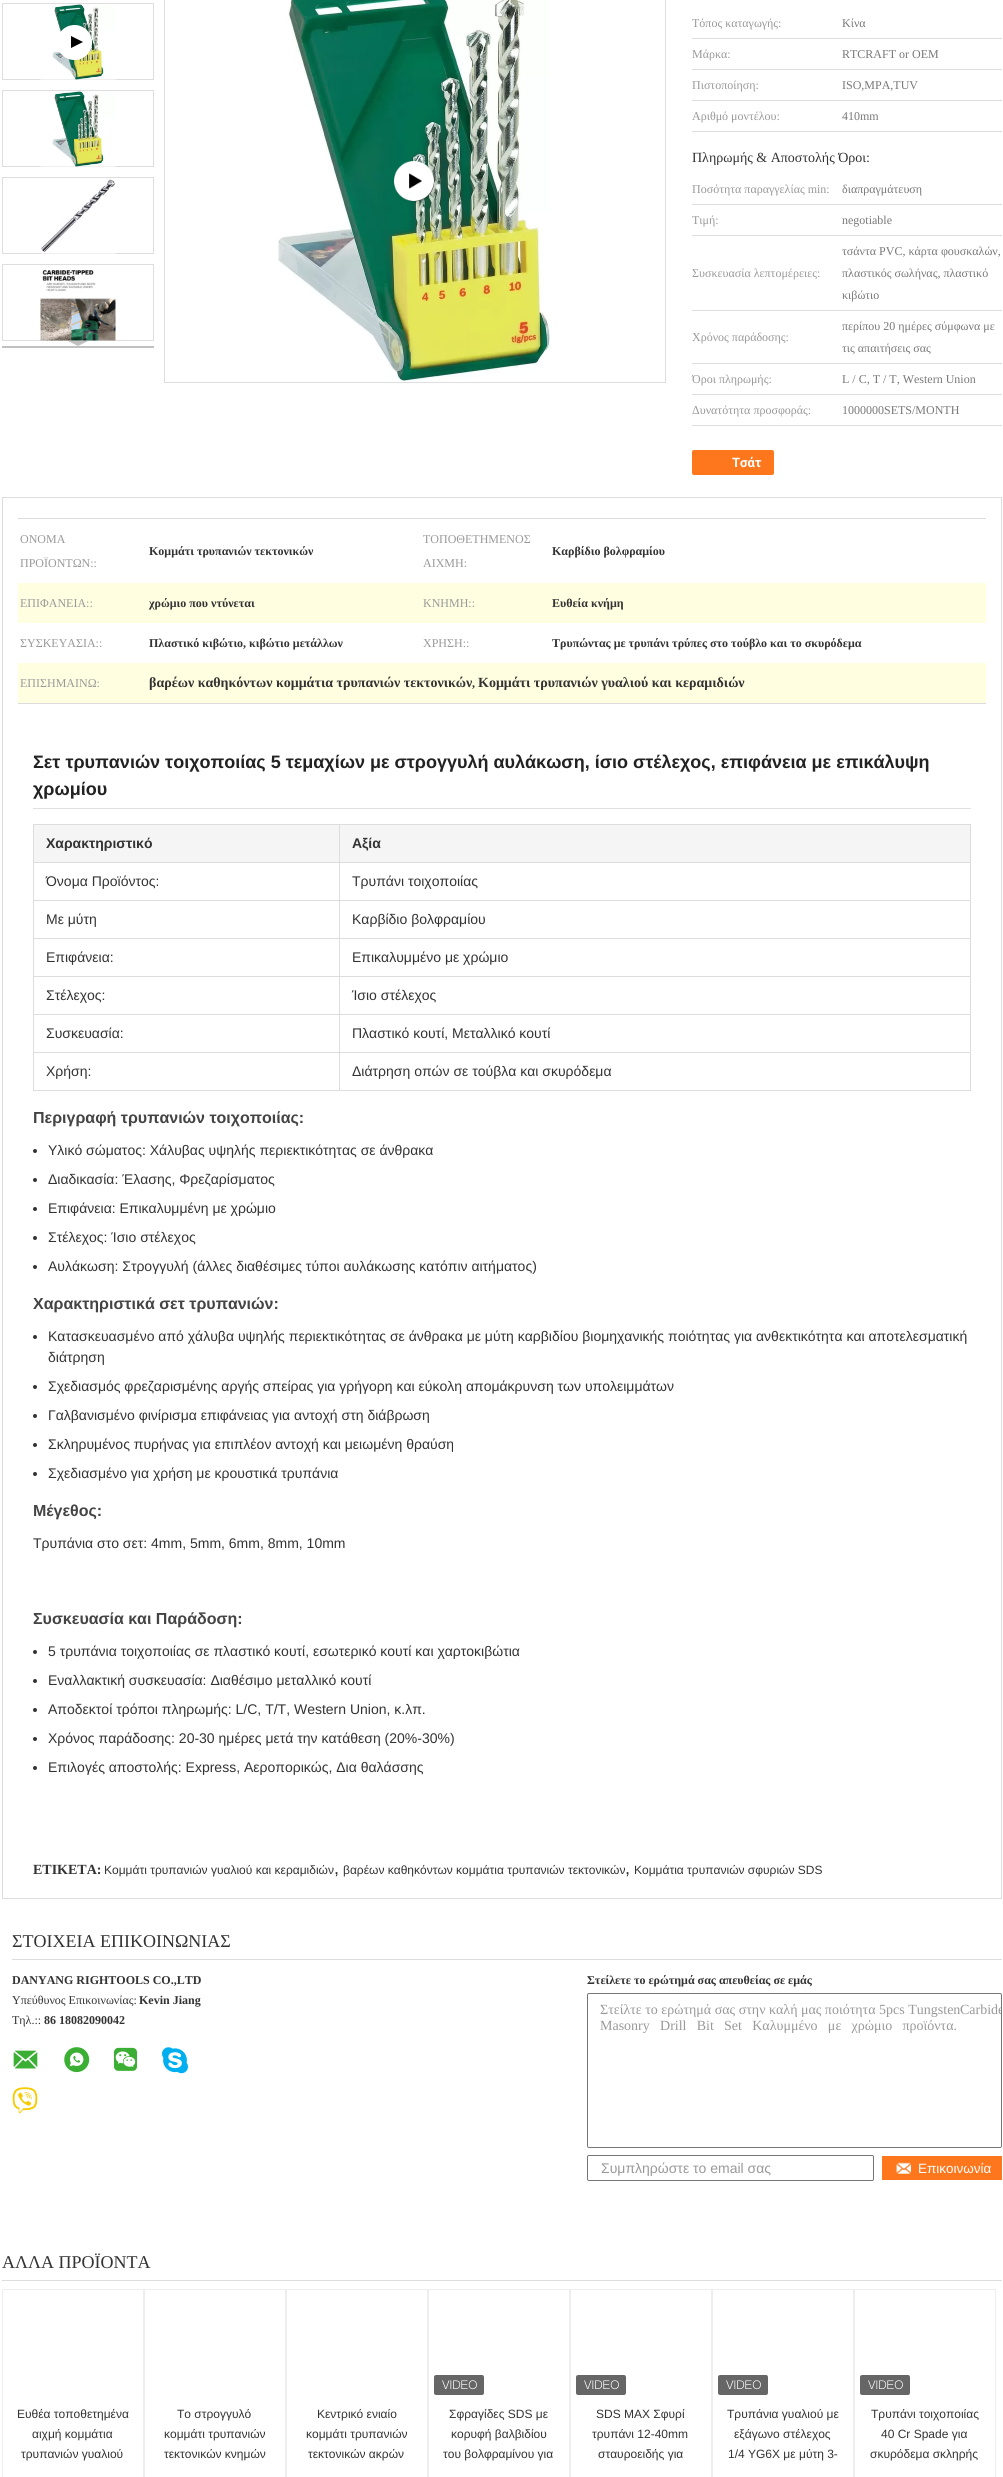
#include <cairo.h>
#include <math.h>
#include <stddef.h>

static cairo_t *ctx;

static void use_color(int r, int g, int b) {
    cairo_set_source_rgb(ctx, r / 255.0, g / 255.0, b / 255.0);
}

static void spaced_text(double x, double y, const char *s, double letter, double word) {
    cairo_move_to(ctx, x, y);
    while (*s) {
        char ch[5] = {0};
        int n = 0;
        do ch[n++] = *s++; while ((*s & 0xC0) == 0x80);
        cairo_show_text(ctx, ch);
        cairo_rel_move_to(ctx, letter + word * (*ch == ' '), 0);
    }
}

static void round_rect(double x, double y, double w, double h, double r) {
    cairo_new_sub_path(ctx);
    cairo_arc(ctx, x + w - r, y + h - r, r, 0, M_PI / 2);
    cairo_arc(ctx, x + r, y + h - r, r, M_PI / 2, M_PI);
    cairo_arc(ctx, x + r, y + r, r, M_PI, 1.5 * M_PI);
    cairo_arc(ctx, x + w - r, y + r, r, 1.5 * M_PI, 2 * M_PI);
    cairo_close_path(ctx);
}

static void shadow(double x, double y, double w, double h, double r, double blur, double alpha) {
    cairo_push_group_with_content(ctx, CAIRO_CONTENT_ALPHA);
    cairo_set_operator(ctx, CAIRO_OPERATOR_SOURCE);
    for (int i = 15; i >= -15 && fmin(w, h) + blur * i / 3 > 0; i -= 2) {
        double e = blur * i / 6;
        cairo_set_source_rgba(ctx, 0, 0, 0, alpha * erfc((i - 1) / 8.5) / 2);
        round_rect(x - e, y - e, w + 2 * e, h + 2 * e, fmax(0, fmin(r + e + blur * .6, fmin(w, h) / 2 + e)));
        cairo_fill(ctx);
    }
    cairo_pattern_t *soft = cairo_pop_group(ctx);
    cairo_mask(ctx, soft);
    cairo_pattern_destroy(soft);
}

static void picture(const char *path, double x, double y, double w, double h) {
    cairo_surface_t *image = cairo_image_surface_create_from_png(path);
    cairo_save(ctx);
    cairo_set_source_surface(ctx, image, x, y);
    cairo_rectangle(ctx, x, y, w, h);
    cairo_fill(ctx);
    cairo_restore(ctx);
    cairo_surface_destroy(image);
}

int main(void) {
    cairo_surface_t *surface = cairo_image_surface_create(CAIRO_FORMAT_RGB24, 1003, 2477);
    ctx = cairo_create(surface);
    cairo_font_options_t *options = cairo_font_options_create();
    cairo_font_options_set_hint_metrics(options, CAIRO_HINT_METRICS_OFF);
    cairo_font_options_set_hint_style(options, CAIRO_HINT_STYLE_NONE);
    cairo_set_font_options(ctx, options);
    cairo_set_miter_limit(ctx, 4);
    use_color(255, 255, 255);
    cairo_paint(ctx);
    cairo_rectangle(ctx, 2.5, 3.5, 151, 76);
    use_color(222, 222, 222);
    cairo_set_line_width(ctx, 1);
    cairo_stroke(ctx);
    picture("img1.png", 40, 4, 76, 76);
    use_color(255, 255, 255);
    cairo_arc(ctx, 74.5, 42.5, 17.5, 0, 2 * M_PI);
    cairo_fill(ctx);
    use_color(0, 0, 0);
    cairo_new_path(ctx);
    cairo_move_to(ctx, 71, 48);
    cairo_line_to(ctx, 71, 36);
    cairo_line_to(ctx, 83, 42);
    cairo_close_path(ctx);
    cairo_fill(ctx);
    cairo_rectangle(ctx, 2.5, 90.5, 151, 76);
    use_color(222, 222, 222);
    cairo_stroke(ctx);
    picture("img2.png", 40, 91, 76, 76);
    cairo_rectangle(ctx, 2.5, 177.5, 151, 76);
    cairo_stroke(ctx);
    picture("img3.png", 40, 179, 76, 75);
    cairo_rectangle(ctx, 2.5, 264.5, 151, 76);
    cairo_stroke(ctx);
    picture("img4.png", 40, 270, 76, 71);
    use_color(192, 192, 192);
    cairo_rectangle(ctx, 2, 346, 152, 2);
    cairo_fill(ctx);
    cairo_new_path(ctx);
    cairo_move_to(ctx, 68, 341);
    cairo_line_to(ctx, 88, 341);
    cairo_line_to(ctx, 78, 346);
    cairo_close_path(ctx);
    cairo_fill(ctx);
    cairo_rectangle(ctx, 164.5, -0.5, 501, 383);
    use_color(222, 222, 222);
    cairo_stroke(ctx);
    picture("img5.png", 278, 0, 272, 381);
    use_color(0, 0, 0);
    shadow(396, 163, 38, 38, 19, 2.5, 0.2);
    use_color(0, 0, 0);
    cairo_arc(ctx, 415, 182, 19, 0, 2 * M_PI);
    cairo_fill(ctx);
    picture("img6.png", 394, 161, 40, 40);
    use_color(222, 222, 222);
    cairo_rectangle(ctx, 692, 38, 310, 1);
    cairo_fill(ctx);
    cairo_select_font_face(ctx, "Liberation Serif", CAIRO_FONT_SLANT_NORMAL, CAIRO_FONT_WEIGHT_NORMAL);
    cairo_set_font_size(ctx, 12);
    use_color(153, 153, 153);
    cairo_move_to(ctx, 692, 27);
    cairo_show_text(ctx, "Τόπος καταγωγής:");
    use_color(120, 120, 120);
    cairo_move_to(ctx, 842, 27);
    cairo_show_text(ctx, "Κίνα");
    use_color(222, 222, 222);
    cairo_rectangle(ctx, 692, 69, 310, 1);
    cairo_fill(ctx);
    use_color(153, 153, 153);
    cairo_move_to(ctx, 692, 58);
    cairo_show_text(ctx, "Μάρκα:");
    use_color(120, 120, 120);
    cairo_move_to(ctx, 842, 58);
    cairo_show_text(ctx, "RTCRAFT or OEM");
    use_color(222, 222, 222);
    cairo_rectangle(ctx, 692, 100, 310, 1);
    cairo_fill(ctx);
    use_color(153, 153, 153);
    cairo_move_to(ctx, 692, 89);
    cairo_show_text(ctx, "Πιστοποίηση:");
    use_color(120, 120, 120);
    cairo_move_to(ctx, 842, 89);
    cairo_show_text(ctx, "ISO,MPA,TUV");
    use_color(222, 222, 222);
    cairo_rectangle(ctx, 692, 131, 310, 1);
    cairo_fill(ctx);
    use_color(153, 153, 153);
    cairo_move_to(ctx, 692, 120);
    cairo_show_text(ctx, "Αριθμό μοντέλου:");
    use_color(120, 120, 120);
    cairo_move_to(ctx, 842, 120);
    cairo_show_text(ctx, "410mm");
    cairo_set_font_size(ctx, 14);
    use_color(51, 51, 51);
    cairo_move_to(ctx, 692, 162);
    cairo_show_text(ctx, "Πληρωμής & Αποστολής Όροι:");
    use_color(222, 222, 222);
    cairo_rectangle(ctx, 692, 204, 310, 1);
    cairo_fill(ctx);
    cairo_set_font_size(ctx, 12);
    use_color(153, 153, 153);
    cairo_move_to(ctx, 692, 193);
    cairo_show_text(ctx, "Ποσότητα παραγγελίας min:");
    use_color(120, 120, 120);
    cairo_move_to(ctx, 842, 193);
    cairo_show_text(ctx, "διαπραγμάτευση");
    use_color(222, 222, 222);
    cairo_rectangle(ctx, 692, 235, 310, 1);
    cairo_fill(ctx);
    use_color(153, 153, 153);
    cairo_move_to(ctx, 692, 224);
    cairo_show_text(ctx, "Τιμή:");
    use_color(120, 120, 120);
    cairo_move_to(ctx, 842, 224);
    cairo_show_text(ctx, "negotiable");
    use_color(222, 222, 222);
    cairo_rectangle(ctx, 692, 310, 310, 1);
    cairo_fill(ctx);
    use_color(153, 153, 153);
    cairo_move_to(ctx, 692, 277);
    cairo_show_text(ctx, "Συσκευασία λεπτομέρειες:");
    use_color(120, 120, 120);
    cairo_move_to(ctx, 842, 255);
    cairo_show_text(ctx, "τσάντα PVC, κάρτα φουσκαλών,");
    cairo_move_to(ctx, 842, 277);
    cairo_show_text(ctx, "πλαστικός σωλήνας, πλαστικό");
    cairo_move_to(ctx, 842, 299);
    cairo_show_text(ctx, "κιβώτιο");
    use_color(222, 222, 222);
    cairo_rectangle(ctx, 692, 363, 310, 1);
    cairo_fill(ctx);
    use_color(153, 153, 153);
    cairo_move_to(ctx, 692, 341);
    cairo_show_text(ctx, "Χρόνος παράδοσης:");
    use_color(120, 120, 120);
    cairo_move_to(ctx, 842, 330);
    cairo_show_text(ctx, "περίπου 20 ημέρες σύμφωνα με");
    cairo_move_to(ctx, 842, 352);
    cairo_show_text(ctx, "τις απαιτήσεις σας");
    use_color(222, 222, 222);
    cairo_rectangle(ctx, 692, 394, 310, 1);
    cairo_fill(ctx);
    use_color(153, 153, 153);
    cairo_move_to(ctx, 692, 383);
    cairo_show_text(ctx, "Όροι πληρωμής:");
    use_color(120, 120, 120);
    cairo_move_to(ctx, 842, 383);
    cairo_show_text(ctx, "L / C, T / T, Western Union");
    use_color(222, 222, 222);
    cairo_rectangle(ctx, 692, 425, 310, 1);
    cairo_fill(ctx);
    use_color(153, 153, 153);
    cairo_move_to(ctx, 692, 414);
    cairo_show_text(ctx, "Δυνατότητα προσφοράς:");
    use_color(120, 120, 120);
    cairo_move_to(ctx, 842, 414);
    cairo_show_text(ctx, "1000000SETS/MONTH");
    use_color(255, 119, 28);
    round_rect(692, 450, 82, 25, 2);
    cairo_fill(ctx);
    cairo_select_font_face(ctx, "Roboto", CAIRO_FONT_SLANT_NORMAL, CAIRO_FONT_WEIGHT_BOLD);
    cairo_set_font_size(ctx, 13);
    use_color(255, 255, 255);
    cairo_move_to(ctx, 732, 467);
    cairo_show_text(ctx, "Τσάτ");
    cairo_rectangle(ctx, 2.5, 497.5, 999, 1401);
    use_color(221, 221, 221);
    cairo_stroke(ctx);
    use_color(220, 220, 220);
    cairo_rectangle(ctx, 18, 518, 968, 1);
    cairo_fill(ctx);
    cairo_rectangle(ctx, 18, 703, 968, 1);
    cairo_fill(ctx);
    cairo_select_font_face(ctx, "Liberation Serif", CAIRO_FONT_SLANT_NORMAL, CAIRO_FONT_WEIGHT_NORMAL);
    cairo_set_font_size(ctx, 12);
    use_color(153, 153, 153);
    cairo_move_to(ctx, 20, 543);
    cairo_show_text(ctx, "ΟΝΟΜΑ");
    cairo_move_to(ctx, 20, 567);
    cairo_show_text(ctx, "ΠΡΟΪΟΝΤΩΝ::");
    cairo_select_font_face(ctx, "Liberation Serif", CAIRO_FONT_SLANT_NORMAL, CAIRO_FONT_WEIGHT_BOLD);
    use_color(51, 51, 51);
    cairo_move_to(ctx, 149, 555);
    cairo_show_text(ctx, "Κομμάτι τρυπανιών τεκτονικών");
    cairo_select_font_face(ctx, "Liberation Serif", CAIRO_FONT_SLANT_NORMAL, CAIRO_FONT_WEIGHT_NORMAL);
    use_color(153, 153, 153);
    cairo_move_to(ctx, 423, 543);
    cairo_show_text(ctx, "ΤΟΠΟΘΕΤΗΜΕΝΟΣ");
    cairo_move_to(ctx, 423, 567);
    cairo_show_text(ctx, "ΑΙΧΜΗ:");
    cairo_select_font_face(ctx, "Liberation Serif", CAIRO_FONT_SLANT_NORMAL, CAIRO_FONT_WEIGHT_BOLD);
    use_color(51, 51, 51);
    cairo_move_to(ctx, 552, 555);
    cairo_show_text(ctx, "Καρβίδιο βολφραμίου");
    use_color(255, 254, 224);
    cairo_rectangle(ctx, 18, 583, 968, 40);
    cairo_fill(ctx);
    cairo_select_font_face(ctx, "Liberation Serif", CAIRO_FONT_SLANT_NORMAL, CAIRO_FONT_WEIGHT_NORMAL);
    use_color(153, 153, 153);
    cairo_move_to(ctx, 20, 607);
    cairo_show_text(ctx, "ΕΠΙΦΑΝΕΙΑ::");
    cairo_select_font_face(ctx, "Liberation Serif", CAIRO_FONT_SLANT_NORMAL, CAIRO_FONT_WEIGHT_BOLD);
    use_color(51, 51, 51);
    cairo_move_to(ctx, 149, 607);
    cairo_show_text(ctx, "χρώμιο που ντύνεται");
    cairo_select_font_face(ctx, "Liberation Serif", CAIRO_FONT_SLANT_NORMAL, CAIRO_FONT_WEIGHT_NORMAL);
    use_color(153, 153, 153);
    cairo_move_to(ctx, 423, 607);
    cairo_show_text(ctx, "ΚΝΗΜΗ::");
    cairo_select_font_face(ctx, "Liberation Serif", CAIRO_FONT_SLANT_NORMAL, CAIRO_FONT_WEIGHT_BOLD);
    use_color(51, 51, 51);
    cairo_move_to(ctx, 552, 607);
    cairo_show_text(ctx, "Ευθεία κνήμη");
    cairo_select_font_face(ctx, "Liberation Serif", CAIRO_FONT_SLANT_NORMAL, CAIRO_FONT_WEIGHT_NORMAL);
    use_color(153, 153, 153);
    cairo_move_to(ctx, 20, 647);
    cairo_show_text(ctx, "ΣΥΣΚΕΥΑΣΙΑ::");
    cairo_select_font_face(ctx, "Liberation Serif", CAIRO_FONT_SLANT_NORMAL, CAIRO_FONT_WEIGHT_BOLD);
    use_color(51, 51, 51);
    cairo_move_to(ctx, 149, 647);
    cairo_show_text(ctx, "Πλαστικό κιβώτιο, κιβώτιο μετάλλων");
    cairo_select_font_face(ctx, "Liberation Serif", CAIRO_FONT_SLANT_NORMAL, CAIRO_FONT_WEIGHT_NORMAL);
    use_color(153, 153, 153);
    cairo_move_to(ctx, 423, 647);
    cairo_show_text(ctx, "ΧΡΗΣΗ::");
    cairo_select_font_face(ctx, "Liberation Serif", CAIRO_FONT_SLANT_NORMAL, CAIRO_FONT_WEIGHT_BOLD);
    use_color(51, 51, 51);
    cairo_move_to(ctx, 552, 647);
    cairo_show_text(ctx, "Τρυπώντας με τρυπάνι τρύπες στο τούβλο και το σκυρόδεμα");
    use_color(255, 254, 224);
    cairo_rectangle(ctx, 18, 663, 968, 40);
    cairo_fill(ctx);
    cairo_select_font_face(ctx, "Liberation Serif", CAIRO_FONT_SLANT_NORMAL, CAIRO_FONT_WEIGHT_NORMAL);
    use_color(153, 153, 153);
    cairo_move_to(ctx, 20, 687);
    cairo_show_text(ctx, "ΕΠΙΣΗΜΑΙΝΩ:");
    cairo_select_font_face(ctx, "Liberation Serif", CAIRO_FONT_SLANT_NORMAL, CAIRO_FONT_WEIGHT_BOLD);
    cairo_set_font_size(ctx, 14);
    use_color(51, 51, 51);
    cairo_move_to(ctx, 149, 687);
    cairo_show_text(ctx, "βαρέων καθηκόντων κομμάτια τρυπανιών τεκτονικών");
    cairo_set_font_size(ctx, 12);
    cairo_move_to(ctx, 472, 687);
    cairo_show_text(ctx, ",");
    cairo_set_font_size(ctx, 14);
    cairo_move_to(ctx, 478, 687);
    cairo_show_text(ctx, "Κομμάτι τρυπανιών γυαλιού και κεραμιδιών");
    use_color(224, 224, 224);
    cairo_rectangle(ctx, 33, 808, 938, 1);
    cairo_fill(ctx);
    cairo_select_font_face(ctx, "Liberation Sans", CAIRO_FONT_SLANT_NORMAL, CAIRO_FONT_WEIGHT_BOLD);
    cairo_set_font_size(ctx, 18);
    use_color(34, 34, 34);
    cairo_move_to(ctx, 33, 768);
    cairo_show_text(ctx, "Σετ τρυπανιών τοιχοποιίας 5 τεμαχίων με στρογγυλή αυλάκωση, ίσιο στέλεχος, επιφάνεια με επικάλυψη");
    cairo_move_to(ctx, 33, 795);
    cairo_show_text(ctx, "χρωμίου");
    use_color(245, 245, 245);
    cairo_rectangle(ctx, 34, 825, 305, 37);
    cairo_fill(ctx);
    use_color(221, 221, 221);
    cairo_rectangle(ctx, 339, 824, 632, 1);
    cairo_fill(ctx);
    cairo_rectangle(ctx, 339, 862, 632, 1);
    cairo_fill(ctx);
    cairo_rectangle(ctx, 339, 900, 632, 1);
    cairo_fill(ctx);
    cairo_rectangle(ctx, 339, 938, 632, 1);
    cairo_fill(ctx);
    cairo_rectangle(ctx, 339, 976, 632, 1);
    cairo_fill(ctx);
    cairo_rectangle(ctx, 339, 1014, 632, 1);
    cairo_fill(ctx);
    cairo_rectangle(ctx, 339, 1052, 632, 1);
    cairo_fill(ctx);
    cairo_rectangle(ctx, 970, 1052, 1, 39);
    cairo_fill(ctx);
    cairo_rectangle(ctx, 339, 1090, 632, 1);
    cairo_fill(ctx);
    cairo_rectangle(ctx, 339, 1052, 1, 39);
    cairo_fill(ctx);
    cairo_rectangle(ctx, 33, 1052, 307, 1);
    cairo_fill(ctx);
    cairo_rectangle(ctx, 339, 1014, 1, 39);
    cairo_fill(ctx);
    cairo_rectangle(ctx, 33, 1014, 307, 1);
    cairo_fill(ctx);
    cairo_rectangle(ctx, 339, 976, 1, 39);
    cairo_fill(ctx);
    cairo_rectangle(ctx, 33, 976, 307, 1);
    cairo_fill(ctx);
    cairo_rectangle(ctx, 339, 938, 1, 39);
    cairo_fill(ctx);
    cairo_rectangle(ctx, 33, 938, 307, 1);
    cairo_fill(ctx);
    cairo_rectangle(ctx, 339, 900, 1, 39);
    cairo_fill(ctx);
    cairo_rectangle(ctx, 33, 900, 307, 1);
    cairo_fill(ctx);
    cairo_rectangle(ctx, 339, 862, 1, 39);
    cairo_fill(ctx);
    cairo_rectangle(ctx, 33, 862, 307, 1);
    cairo_fill(ctx);
    cairo_rectangle(ctx, 339, 824, 1, 39);
    cairo_fill(ctx);
    cairo_rectangle(ctx, 33, 824, 307, 1);
    cairo_fill(ctx);
    cairo_rectangle(ctx, 33, 1090, 307, 1);
    cairo_fill(ctx);
    cairo_rectangle(ctx, 33, 1052, 1, 39);
    cairo_fill(ctx);
    cairo_rectangle(ctx, 33, 1014, 1, 39);
    cairo_fill(ctx);
    cairo_rectangle(ctx, 33, 976, 1, 39);
    cairo_fill(ctx);
    cairo_rectangle(ctx, 33, 938, 1, 39);
    cairo_fill(ctx);
    cairo_rectangle(ctx, 33, 900, 1, 39);
    cairo_fill(ctx);
    cairo_rectangle(ctx, 33, 862, 1, 39);
    cairo_fill(ctx);
    cairo_rectangle(ctx, 33, 824, 1, 39);
    cairo_fill(ctx);
    cairo_set_font_size(ctx, 14);
    use_color(51, 51, 51);
    cairo_move_to(ctx, 46, 848);
    cairo_show_text(ctx, "Χαρακτηριστικό");
    use_color(245, 245, 245);
    cairo_rectangle(ctx, 340, 825, 630, 37);
    cairo_fill(ctx);
    use_color(221, 221, 221);
    cairo_rectangle(ctx, 970, 1014, 1, 39);
    cairo_fill(ctx);
    cairo_rectangle(ctx, 970, 976, 1, 39);
    cairo_fill(ctx);
    cairo_rectangle(ctx, 970, 938, 1, 39);
    cairo_fill(ctx);
    cairo_rectangle(ctx, 970, 900, 1, 39);
    cairo_fill(ctx);
    cairo_rectangle(ctx, 970, 862, 1, 39);
    cairo_fill(ctx);
    cairo_rectangle(ctx, 970, 824, 1, 39);
    cairo_fill(ctx);
    use_color(51, 51, 51);
    cairo_move_to(ctx, 352, 848);
    cairo_show_text(ctx, "Αξία");
    cairo_select_font_face(ctx, "Liberation Sans", CAIRO_FONT_SLANT_NORMAL, CAIRO_FONT_WEIGHT_NORMAL);
    cairo_move_to(ctx, 46, 886);
    cairo_show_text(ctx, "Όνομα Προϊόντος:");
    cairo_move_to(ctx, 352, 886);
    cairo_show_text(ctx, "Τρυπάνι τοιχοποιίας");
    cairo_move_to(ctx, 46, 924);
    cairo_show_text(ctx, "Με μύτη");
    cairo_move_to(ctx, 352, 924);
    cairo_show_text(ctx, "Καρβίδιο βολφραμίου");
    cairo_move_to(ctx, 46, 962);
    cairo_show_text(ctx, "Επιφάνεια:");
    cairo_move_to(ctx, 352, 962);
    cairo_show_text(ctx, "Επικαλυμμένο με χρώμιο");
    cairo_move_to(ctx, 46, 1000);
    cairo_show_text(ctx, "Στέλεχος:");
    cairo_move_to(ctx, 352, 1000);
    cairo_show_text(ctx, "Ίσιο στέλεχος");
    cairo_move_to(ctx, 46, 1038);
    cairo_show_text(ctx, "Συσκευασία:");
    cairo_move_to(ctx, 352, 1038);
    cairo_show_text(ctx, "Πλαστικό κουτί, Μεταλλικό κουτί");
    cairo_move_to(ctx, 46, 1076);
    cairo_show_text(ctx, "Χρήση:");
    cairo_move_to(ctx, 352, 1076);
    cairo_show_text(ctx, "Διάτρηση οπών σε τούβλα και σκυρόδεμα");
    cairo_select_font_face(ctx, "Liberation Sans", CAIRO_FONT_SLANT_NORMAL, CAIRO_FONT_WEIGHT_BOLD);
    cairo_set_font_size(ctx, 16);
    use_color(68, 68, 68);
    cairo_move_to(ctx, 33, 1123);
    cairo_show_text(ctx, "Περιγραφή τρυπανιών τοιχοποιίας:");
    use_color(51, 51, 51);
    cairo_new_path(ctx);
    cairo_arc(ctx, 35, 1151, 2, 0, 2 * M_PI);
    cairo_fill(ctx);
    cairo_select_font_face(ctx, "Liberation Sans", CAIRO_FONT_SLANT_NORMAL, CAIRO_FONT_WEIGHT_NORMAL);
    cairo_set_font_size(ctx, 14);
    cairo_move_to(ctx, 48, 1155);
    cairo_show_text(ctx, "Υλικό σώματος: Χάλυβας υψηλής περιεκτικότητας σε άνθρακα");
    cairo_new_path(ctx);
    cairo_arc(ctx, 35, 1180, 2, 0, 2 * M_PI);
    cairo_fill(ctx);
    cairo_move_to(ctx, 48, 1184);
    cairo_show_text(ctx, "Διαδικασία: Έλασης, Φρεζαρίσματος");
    cairo_new_path(ctx);
    cairo_arc(ctx, 35, 1209, 2, 0, 2 * M_PI);
    cairo_fill(ctx);
    cairo_move_to(ctx, 48, 1213);
    cairo_show_text(ctx, "Επιφάνεια: Επικαλυμμένη με χρώμιο");
    cairo_new_path(ctx);
    cairo_arc(ctx, 35, 1238, 2, 0, 2 * M_PI);
    cairo_fill(ctx);
    cairo_move_to(ctx, 48, 1242);
    cairo_show_text(ctx, "Στέλεχος: Ίσιο στέλεχος");
    cairo_new_path(ctx);
    cairo_arc(ctx, 35, 1267, 2, 0, 2 * M_PI);
    cairo_fill(ctx);
    cairo_move_to(ctx, 48, 1271);
    cairo_show_text(ctx, "Αυλάκωση: Στρογγυλή (άλλες διαθέσιμες τύποι αυλάκωσης κατόπιν αιτήματος)");
    cairo_select_font_face(ctx, "Liberation Sans", CAIRO_FONT_SLANT_NORMAL, CAIRO_FONT_WEIGHT_BOLD);
    cairo_set_font_size(ctx, 16);
    use_color(68, 68, 68);
    cairo_move_to(ctx, 33, 1309);
    cairo_show_text(ctx, "Χαρακτηριστικά σετ τρυπανιών:");
    use_color(51, 51, 51);
    cairo_new_path(ctx);
    cairo_arc(ctx, 35, 1337, 2, 0, 2 * M_PI);
    cairo_fill(ctx);
    cairo_select_font_face(ctx, "Liberation Sans", CAIRO_FONT_SLANT_NORMAL, CAIRO_FONT_WEIGHT_NORMAL);
    cairo_set_font_size(ctx, 14);
    cairo_move_to(ctx, 48, 1341);
    cairo_show_text(ctx, "Κατασκευασμένο από χάλυβα υψηλής περιεκτικότητας σε άνθρακα με μύτη καρβιδίου βιομηχανικής ποιότητας για ανθεκτικότητα και αποτελεσματική");
    cairo_move_to(ctx, 48, 1362);
    cairo_show_text(ctx, "διάτρηση");
    cairo_new_path(ctx);
    cairo_arc(ctx, 35, 1387, 2, 0, 2 * M_PI);
    cairo_fill(ctx);
    cairo_move_to(ctx, 48, 1391);
    cairo_show_text(ctx, "Σχεδιασμός φρεζαρισμένης αργής σπείρας για γρήγορη και εύκολη απομάκρυνση των υπολειμμάτων");
    cairo_new_path(ctx);
    cairo_arc(ctx, 35, 1416, 2, 0, 2 * M_PI);
    cairo_fill(ctx);
    cairo_move_to(ctx, 48, 1420);
    cairo_show_text(ctx, "Γαλβανισμένο φινίρισμα επιφάνειας για αντοχή στη διάβρωση");
    cairo_new_path(ctx);
    cairo_arc(ctx, 35, 1445, 2, 0, 2 * M_PI);
    cairo_fill(ctx);
    cairo_move_to(ctx, 48, 1449);
    cairo_show_text(ctx, "Σκληρυμένος πυρήνας για επιπλέον αντοχή και μειωμένη θραύση");
    cairo_new_path(ctx);
    cairo_arc(ctx, 35, 1474, 2, 0, 2 * M_PI);
    cairo_fill(ctx);
    cairo_move_to(ctx, 48, 1478);
    cairo_show_text(ctx, "Σχεδιασμένο για χρήση με κρουστικά τρυπάνια");
    cairo_select_font_face(ctx, "Liberation Sans", CAIRO_FONT_SLANT_NORMAL, CAIRO_FONT_WEIGHT_BOLD);
    cairo_set_font_size(ctx, 16);
    use_color(68, 68, 68);
    cairo_move_to(ctx, 33, 1516);
    cairo_show_text(ctx, "Μέγεθος:");
    cairo_select_font_face(ctx, "Liberation Sans", CAIRO_FONT_SLANT_NORMAL, CAIRO_FONT_WEIGHT_NORMAL);
    cairo_set_font_size(ctx, 14);
    use_color(51, 51, 51);
    cairo_move_to(ctx, 33, 1548);
    cairo_show_text(ctx, "Τρυπάνια στο σετ: 4mm, 5mm, 6mm, 8mm, 10mm");
    cairo_select_font_face(ctx, "Liberation Sans", CAIRO_FONT_SLANT_NORMAL, CAIRO_FONT_WEIGHT_BOLD);
    cairo_set_font_size(ctx, 16);
    use_color(68, 68, 68);
    cairo_move_to(ctx, 33, 1624);
    cairo_show_text(ctx, "Συσκευασία και Παράδοση:");
    use_color(51, 51, 51);
    cairo_new_path(ctx);
    cairo_arc(ctx, 35, 1652, 2, 0, 2 * M_PI);
    cairo_fill(ctx);
    cairo_select_font_face(ctx, "Liberation Sans", CAIRO_FONT_SLANT_NORMAL, CAIRO_FONT_WEIGHT_NORMAL);
    cairo_set_font_size(ctx, 14);
    cairo_move_to(ctx, 48, 1656);
    cairo_show_text(ctx, "5 τρυπάνια τοιχοποιίας σε πλαστικό κουτί, εσωτερικό κουτί και χαρτοκιβώτια");
    cairo_new_path(ctx);
    cairo_arc(ctx, 35, 1681, 2, 0, 2 * M_PI);
    cairo_fill(ctx);
    cairo_move_to(ctx, 48, 1685);
    cairo_show_text(ctx, "Εναλλακτική συσκευασία: Διαθέσιμο μεταλλικό κουτί");
    cairo_new_path(ctx);
    cairo_arc(ctx, 35, 1710, 2, 0, 2 * M_PI);
    cairo_fill(ctx);
    cairo_move_to(ctx, 48, 1714);
    cairo_show_text(ctx, "Αποδεκτοί τρόποι πληρωμής: L/C, T/T, Western Union, κ.λπ.");
    cairo_new_path(ctx);
    cairo_arc(ctx, 35, 1739, 2, 0, 2 * M_PI);
    cairo_fill(ctx);
    cairo_move_to(ctx, 48, 1743);
    cairo_show_text(ctx, "Χρόνος παράδοσης: 20-30 ημέρες μετά την κατάθεση (20%-30%)");
    cairo_new_path(ctx);
    cairo_arc(ctx, 35, 1768, 2, 0, 2 * M_PI);
    cairo_fill(ctx);
    cairo_move_to(ctx, 48, 1772);
    cairo_show_text(ctx, "Επιλογές αποστολής: Express, Αεροπορικώς, Δια θαλάσσης");
    cairo_select_font_face(ctx, "Liberation Serif", CAIRO_FONT_SLANT_NORMAL, CAIRO_FONT_WEIGHT_BOLD);
    cairo_move_to(ctx, 33, 1874);
    cairo_show_text(ctx, "ΕΤΙΚΕΤΑ:");
    cairo_select_font_face(ctx, "Liberation Sans", CAIRO_FONT_SLANT_NORMAL, CAIRO_FONT_WEIGHT_NORMAL);
    cairo_set_font_size(ctx, 12);
    cairo_move_to(ctx, 104, 1874);
    cairo_show_text(ctx, "Κομμάτι τρυπανιών γυαλιού και κεραμιδιών");
    cairo_set_font_size(ctx, 18);
    cairo_move_to(ctx, 334, 1874);
    cairo_show_text(ctx, ",");
    cairo_set_font_size(ctx, 12);
    cairo_move_to(ctx, 343, 1874);
    cairo_show_text(ctx, "βαρέων καθηκόντων κομμάτια τρυπανιών τεκτονικών");
    cairo_set_font_size(ctx, 18);
    cairo_move_to(ctx, 625, 1874);
    cairo_show_text(ctx, ",");
    cairo_set_font_size(ctx, 12);
    cairo_move_to(ctx, 634, 1874);
    cairo_show_text(ctx, "Κομμάτια τρυπανιών σφυριών SDS");
    use_color(221, 221, 221);
    cairo_rectangle(ctx, 12, 1959, 990, 1);
    cairo_fill(ctx);
    cairo_select_font_face(ctx, "Liberation Serif", CAIRO_FONT_SLANT_NORMAL, CAIRO_FONT_WEIGHT_NORMAL);
    cairo_set_font_size(ctx, 18);
    use_color(51, 51, 51);
    cairo_move_to(ctx, 12, 1947);
    cairo_show_text(ctx, "ΣΤΟΙΧΕΙΑ ΕΠΙΚΟΙΝΩΝΙΑΣ");
    cairo_select_font_face(ctx, "Liberation Serif", CAIRO_FONT_SLANT_NORMAL, CAIRO_FONT_WEIGHT_BOLD);
    cairo_set_font_size(ctx, 12);
    cairo_move_to(ctx, 12, 1984);
    cairo_show_text(ctx, "DANYANG RIGHTOOLS CO.,LTD");
    cairo_select_font_face(ctx, "Liberation Serif", CAIRO_FONT_SLANT_NORMAL, CAIRO_FONT_WEIGHT_NORMAL);
    cairo_move_to(ctx, 12, 2004);
    cairo_show_text(ctx, "Υπεύθυνος Επικοινωνίας:");
    cairo_select_font_face(ctx, "Liberation Serif", CAIRO_FONT_SLANT_NORMAL, CAIRO_FONT_WEIGHT_BOLD);
    cairo_move_to(ctx, 139, 2004);
    cairo_show_text(ctx, "Kevin Jiang");
    cairo_select_font_face(ctx, "Liberation Serif", CAIRO_FONT_SLANT_NORMAL, CAIRO_FONT_WEIGHT_NORMAL);
    cairo_move_to(ctx, 12, 2024);
    cairo_show_text(ctx, "Τηλ.::");
    cairo_select_font_face(ctx, "Liberation Serif", CAIRO_FONT_SLANT_NORMAL, CAIRO_FONT_WEIGHT_BOLD);
    cairo_move_to(ctx, 44, 2024);
    cairo_show_text(ctx, "86 18082090042");
    picture("img7.png", 13, 2050, 25, 19);
    picture("img8.png", 64, 2047, 26, 26);
    picture("img9.png", 114, 2047, 23, 24);
    picture("img10.png", 162, 2047, 26, 27);
    picture("img11.png", 12, 2087, 26, 27);
    cairo_move_to(ctx, 587, 1984);
    cairo_show_text(ctx, "Στείλετε το ερώτημά σας απευθείας σε εμάς");
    round_rect(587.5, 1993.5, 414, 154, 1.5);
    use_color(118, 118, 118);
    cairo_stroke(ctx);
    cairo_select_font_face(ctx, "Liberation Serif", CAIRO_FONT_SLANT_NORMAL, CAIRO_FONT_WEIGHT_NORMAL);
    cairo_set_font_size(ctx, 14);
    use_color(153, 153, 153);
    cairo_move_to(ctx, 600, 2014);
    cairo_show_text(ctx, "Στείλτε το ερώτημά σας στην καλή μας ποιότητα 5pcs Tungsten");
    cairo_save(ctx);
    cairo_rectangle(ctx, 588, 1994, 413, 153);
    cairo_clip(ctx);
    cairo_move_to(ctx, 960, 2014);
    cairo_show_text(ctx, "Carbide");
    cairo_restore(ctx);
    spaced_text(600, 2030, "Masonry Drill Bit Set Καλυμμένο με χρώμιο προϊόντα.", 0, 6.75);
    round_rect(587.5, 2155.5, 286, 25, 1.5);
    use_color(118, 118, 118);
    cairo_stroke(ctx);
    cairo_select_font_face(ctx, "Liberation Sans", CAIRO_FONT_SLANT_NORMAL, CAIRO_FONT_WEIGHT_NORMAL);
    use_color(153, 153, 153);
    cairo_move_to(ctx, 601, 2173);
    cairo_show_text(ctx, "Συμπληρώστε το email σας");
    use_color(255, 119, 28);
    cairo_rectangle(ctx, 882, 2156, 120, 24);
    cairo_fill(ctx);
    picture("img12.png", 896, 2162, 15, 12);
    cairo_set_font_size(ctx, 13.5);
    use_color(255, 255, 255);
    cairo_move_to(ctx, 918, 2173);
    cairo_show_text(ctx, "Επικοινωνία");
    use_color(221, 221, 221);
    cairo_rectangle(ctx, 2, 2280, 1000, 1);
    cairo_fill(ctx);
    cairo_select_font_face(ctx, "Liberation Serif", CAIRO_FONT_SLANT_NORMAL, CAIRO_FONT_WEIGHT_NORMAL);
    cairo_set_font_size(ctx, 18);
    use_color(51, 51, 51);
    cairo_move_to(ctx, 2, 2268);
    cairo_show_text(ctx, "ΑΛΛΑ ΠΡΟΪΟΝΤΑ");
    cairo_rectangle(ctx, 2.5, 2289.5, 141, 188);
    use_color(238, 238, 238);
    cairo_stroke(ctx);
    cairo_select_font_face(ctx, "Liberation Sans", CAIRO_FONT_SLANT_NORMAL, CAIRO_FONT_WEIGHT_NORMAL);
    cairo_set_font_size(ctx, 12);
    use_color(51, 51, 51);
    cairo_move_to(ctx, 17, 2418);
    cairo_show_text(ctx, "Ευθέα τοποθετημένα");
    cairo_move_to(ctx, 32, 2438);
    cairo_show_text(ctx, "αιχμή κομμάτια");
    cairo_move_to(ctx, 21, 2458);
    cairo_show_text(ctx, "τρυπανιών γυαλιού");
    cairo_rectangle(ctx, 144.5, 2289.5, 141, 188);
    use_color(238, 238, 238);
    cairo_stroke(ctx);
    use_color(51, 51, 51);
    cairo_move_to(ctx, 177, 2418);
    cairo_show_text(ctx, "Το στρογγυλό");
    cairo_move_to(ctx, 164, 2438);
    cairo_show_text(ctx, "κομμάτι τρυπανιών");
    cairo_move_to(ctx, 164, 2458);
    cairo_show_text(ctx, "τεκτονικών κνημών");
    cairo_rectangle(ctx, 286.5, 2289.5, 141, 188);
    use_color(238, 238, 238);
    cairo_stroke(ctx);
    use_color(51, 51, 51);
    cairo_move_to(ctx, 317, 2418);
    cairo_show_text(ctx, "Κεντρικό ενιαίο");
    cairo_move_to(ctx, 306, 2438);
    cairo_show_text(ctx, "κομμάτι τρυπανιών");
    cairo_move_to(ctx, 308, 2458);
    cairo_show_text(ctx, "τεκτονικών ακρών");
    cairo_rectangle(ctx, 428.5, 2289.5, 141, 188);
    use_color(238, 238, 238);
    cairo_stroke(ctx);
    picture("img13.png", 434, 2375, 50, 20);
    use_color(51, 51, 51);
    cairo_move_to(ctx, 449, 2418);
    cairo_show_text(ctx, "Σφραγίδες SDS με");
    cairo_move_to(ctx, 451, 2438);
    cairo_show_text(ctx, "κορυφή βαλβιδίου");
    cairo_move_to(ctx, 443, 2458);
    cairo_show_text(ctx, "του βολφραμίνου για");
    cairo_rectangle(ctx, 570.5, 2289.5, 141, 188);
    use_color(238, 238, 238);
    cairo_stroke(ctx);
    picture("img13.png", 576, 2375, 50, 20);
    use_color(51, 51, 51);
    cairo_move_to(ctx, 596, 2418);
    cairo_show_text(ctx, "SDS MAX Σφυρί");
    cairo_move_to(ctx, 592, 2438);
    cairo_show_text(ctx, "τρυπάνι 12-40mm");
    cairo_move_to(ctx, 598, 2458);
    cairo_show_text(ctx, "σταυροειδής για");
    cairo_rectangle(ctx, 712.5, 2289.5, 141, 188);
    use_color(238, 238, 238);
    cairo_stroke(ctx);
    picture("img13.png", 718, 2375, 50, 20);
    use_color(51, 51, 51);
    cairo_move_to(ctx, 727, 2418);
    cairo_show_text(ctx, "Τρυπάνια γυαλιού με");
    cairo_move_to(ctx, 734, 2438);
    cairo_show_text(ctx, "εξάγωνο στέλεχος");
    cairo_move_to(ctx, 728, 2458);
    cairo_show_text(ctx, "1/4 YG6X με μύτη 3-");
    cairo_rectangle(ctx, 854.5, 2289.5, 141, 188);
    use_color(238, 238, 238);
    cairo_stroke(ctx);
    picture("img13.png", 860, 2375, 50, 20);
    use_color(51, 51, 51);
    cairo_move_to(ctx, 871, 2418);
    cairo_show_text(ctx, "Τρυπάνι τοιχοποιίας");
    cairo_move_to(ctx, 881, 2438);
    cairo_show_text(ctx, "40 Cr Spade για");
    cairo_move_to(ctx, 870, 2458);
    cairo_show_text(ctx, "σκυρόδεμα σκληρής");
    cairo_surface_write_to_png(surface, "result.png");
    cairo_font_options_destroy(options);
    cairo_destroy(ctx);
    cairo_surface_destroy(surface);
    return 0;
}
